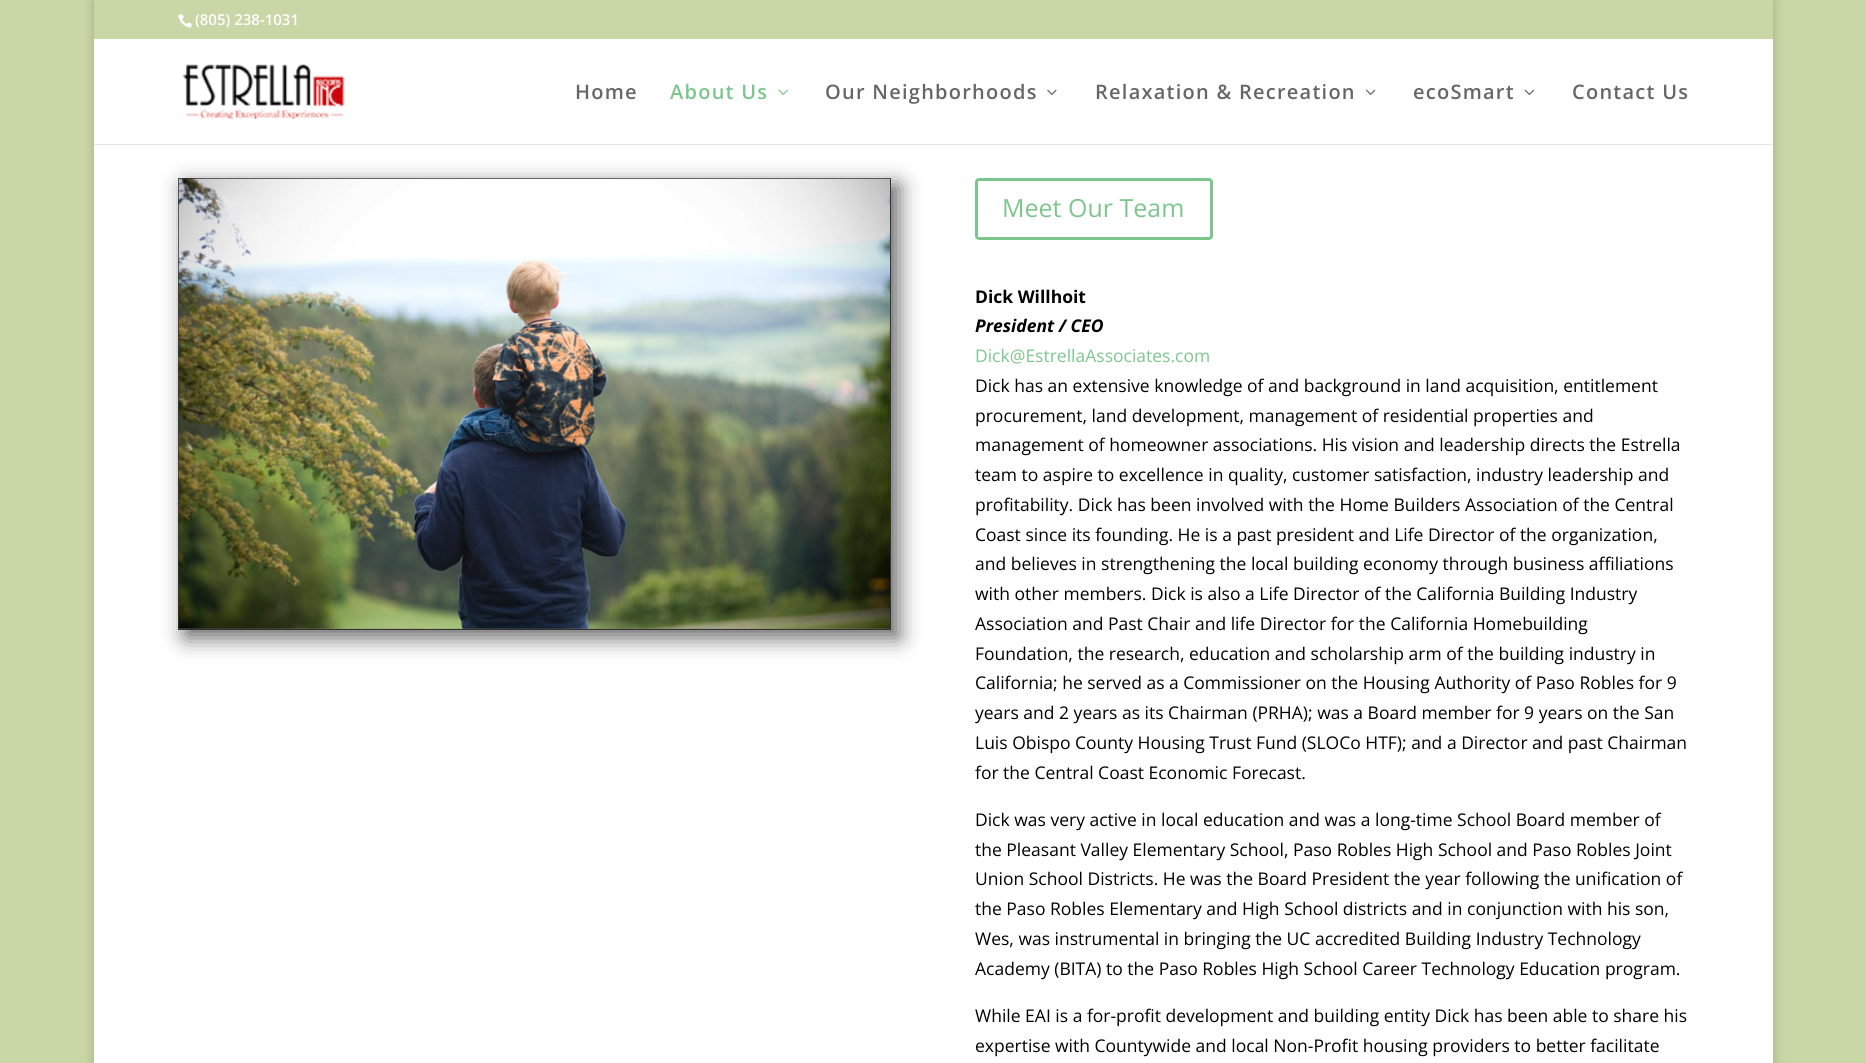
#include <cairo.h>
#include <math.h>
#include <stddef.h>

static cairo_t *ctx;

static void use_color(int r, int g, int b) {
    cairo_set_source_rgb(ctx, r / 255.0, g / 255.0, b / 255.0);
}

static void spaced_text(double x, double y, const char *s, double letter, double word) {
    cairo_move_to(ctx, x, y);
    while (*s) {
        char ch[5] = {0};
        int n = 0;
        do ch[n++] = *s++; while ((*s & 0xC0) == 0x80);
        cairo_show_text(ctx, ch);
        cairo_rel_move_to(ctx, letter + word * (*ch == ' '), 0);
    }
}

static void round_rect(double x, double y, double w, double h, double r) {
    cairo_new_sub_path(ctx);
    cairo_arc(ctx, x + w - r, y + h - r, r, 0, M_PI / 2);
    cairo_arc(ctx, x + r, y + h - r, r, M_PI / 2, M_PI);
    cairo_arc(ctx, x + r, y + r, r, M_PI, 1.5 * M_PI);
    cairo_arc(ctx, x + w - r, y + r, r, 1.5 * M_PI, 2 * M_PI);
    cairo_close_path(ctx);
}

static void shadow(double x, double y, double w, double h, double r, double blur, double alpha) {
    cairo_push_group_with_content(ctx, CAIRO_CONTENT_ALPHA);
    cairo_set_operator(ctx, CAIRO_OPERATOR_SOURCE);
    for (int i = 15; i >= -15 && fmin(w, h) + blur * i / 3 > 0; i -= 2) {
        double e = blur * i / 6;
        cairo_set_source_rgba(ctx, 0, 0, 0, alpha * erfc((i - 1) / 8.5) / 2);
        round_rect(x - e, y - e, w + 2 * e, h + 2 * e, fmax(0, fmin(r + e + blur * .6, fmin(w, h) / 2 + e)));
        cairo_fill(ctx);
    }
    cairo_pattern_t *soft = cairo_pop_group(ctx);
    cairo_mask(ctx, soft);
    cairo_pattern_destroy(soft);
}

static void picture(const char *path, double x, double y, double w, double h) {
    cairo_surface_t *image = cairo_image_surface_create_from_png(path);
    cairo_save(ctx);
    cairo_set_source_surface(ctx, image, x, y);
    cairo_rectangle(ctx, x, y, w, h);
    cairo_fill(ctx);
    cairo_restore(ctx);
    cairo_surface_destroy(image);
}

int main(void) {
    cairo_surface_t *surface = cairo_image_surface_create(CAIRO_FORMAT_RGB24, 1866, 1063);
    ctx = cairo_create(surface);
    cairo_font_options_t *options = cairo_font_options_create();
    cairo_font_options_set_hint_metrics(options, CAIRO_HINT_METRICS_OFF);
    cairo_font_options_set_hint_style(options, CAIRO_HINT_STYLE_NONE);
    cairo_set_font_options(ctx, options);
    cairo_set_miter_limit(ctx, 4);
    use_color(201, 214, 166);
    cairo_paint(ctx);
    use_color(0, 0, 0);
    shadow(94, 0, 1679, 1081, 0, 6, 0.2);
    use_color(201, 214, 166);
    cairo_rectangle(ctx, 94, 0, 1679, 39);
    cairo_fill(ctx);
    picture("img1.png", 178, 14, 14, 14);
    cairo_select_font_face(ctx, "Open Sans SemiBold", CAIRO_FONT_SLANT_NORMAL, CAIRO_FONT_WEIGHT_NORMAL);
    cairo_set_font_size(ctx, 15);
    use_color(255, 255, 255);
    cairo_move_to(ctx, 195, 25);
    cairo_show_text(ctx, "(805) 238-1031");
    cairo_rectangle(ctx, 94, 144, 1679, 919);
    cairo_fill(ctx);
    cairo_set_source_rgba(ctx, 0, 0, 0, 0.1);
    cairo_new_path(ctx);
    cairo_move_to(ctx, 94, 144);
    cairo_line_to(ctx, 94, 145);
    cairo_line_to(ctx, 1773, 145);
    cairo_line_to(ctx, 1773, 40);
    cairo_line_to(ctx, 1772, 40);
    cairo_line_to(ctx, 1772, 144);
    cairo_close_path(ctx);
    cairo_fill(ctx);
    use_color(255, 255, 255);
    cairo_rectangle(ctx, 94, 39, 1679, 105);
    cairo_fill(ctx);
    picture("img2.png", 182, 64, 163, 55);
    cairo_set_font_size(ctx, 20);
    use_color(102, 102, 102);
    spaced_text(575, 99, "Home", 1.25, 0);
    use_color(124, 198, 141);
    spaced_text(670, 99, "About Us", 1.25, 0);
    picture("img3.png", 778, 89, 10, 6);
    use_color(102, 102, 102);
    spaced_text(825, 99, "Our Neighborhoods", 1.25, 0);
    picture("img4.png", 1047, 89, 10, 6);
    spaced_text(1095, 99, "Relaxation & Recreation", 1.25, 0);
    picture("img5.png", 1366, 89, 10, 6);
    spaced_text(1413, 99, "ecoSmart", 1.25, 0);
    picture("img6.png", 1524, 89, 10, 6);
    spaced_text(1572, 99, "Contact Us", 1.25, 0);
    use_color(0, 0, 0);
    shadow(185, 185, 714, 453, 0, 11, 0.6);
    cairo_rectangle(ctx, 178.5, 178.5, 712, 451);
    use_color(51, 51, 51);
    cairo_set_line_width(ctx, 1);
    cairo_stroke(ctx);
    picture("img7.png", 178, 178, 712, 451);
    round_rect(976.5, 179.5, 235, 59, 2.5);
    use_color(124, 198, 141);
    cairo_set_line_width(ctx, 3);
    cairo_stroke(ctx);
    cairo_select_font_face(ctx, "Open Sans", CAIRO_FONT_SLANT_NORMAL, CAIRO_FONT_WEIGHT_NORMAL);
    cairo_set_font_size(ctx, 25);
    cairo_move_to(ctx, 1002, 217);
    cairo_show_text(ctx, "Meet Our Team");
    cairo_select_font_face(ctx, "Open Sans", CAIRO_FONT_SLANT_NORMAL, CAIRO_FONT_WEIGHT_BOLD);
    cairo_set_font_size(ctx, 17.5);
    use_color(0, 0, 0);
    cairo_move_to(ctx, 975, 303);
    cairo_show_text(ctx, "Dick Willhoit");
    cairo_select_font_face(ctx, "Open Sans", CAIRO_FONT_SLANT_ITALIC, CAIRO_FONT_WEIGHT_BOLD);
    cairo_move_to(ctx, 975, 332);
    cairo_show_text(ctx, "President / CEO");
    cairo_select_font_face(ctx, "Open Sans", CAIRO_FONT_SLANT_NORMAL, CAIRO_FONT_WEIGHT_NORMAL);
    use_color(124, 198, 141);
    cairo_move_to(ctx, 975, 362);
    cairo_show_text(ctx, "Dick@EstrellaAssociates.com");
    use_color(0, 0, 0);
    cairo_move_to(ctx, 975, 392);
    cairo_show_text(ctx, "Dick has an extensive knowledge of and background in land acquisition, entitlement");
    cairo_move_to(ctx, 975, 422);
    cairo_show_text(ctx, "procurement, land development, management of residential properties and");
    cairo_move_to(ctx, 975, 451);
    cairo_show_text(ctx, "management of homeowner associations. His vision and leadership directs the Estrella");
    cairo_move_to(ctx, 975, 481);
    cairo_show_text(ctx, "team to aspire to excellence in quality, customer satisfaction, industry leadership and");
    cairo_move_to(ctx, 975, 511);
    cairo_show_text(ctx, "profitability. Dick has been involved with the Home Builders Association of the Central");
    cairo_move_to(ctx, 975, 541);
    cairo_show_text(ctx, "Coast since its founding. He is a past president and Life Director of the organization,");
    cairo_move_to(ctx, 975, 570);
    cairo_show_text(ctx, "and believes in strengthening the local building economy through business affiliations");
    cairo_move_to(ctx, 975, 600);
    cairo_show_text(ctx, "with other members. Dick is also a Life Director of the California Building Industry");
    cairo_move_to(ctx, 975, 630);
    cairo_show_text(ctx, "Association and Past Chair and life Director for the California Homebuilding");
    cairo_move_to(ctx, 975, 660);
    cairo_show_text(ctx, "Foundation, the research, education and scholarship arm of the building industry in");
    cairo_move_to(ctx, 975, 689);
    cairo_show_text(ctx, "California; he served as a Commissioner on the Housing Authority of Paso Robles for 9");
    cairo_move_to(ctx, 975, 719);
    cairo_show_text(ctx, "years and 2 years as its Chairman (PRHA); was a Board member for 9 years on the San");
    cairo_move_to(ctx, 975, 749);
    cairo_show_text(ctx, "Luis Obispo County Housing Trust Fund (SLOCo HTF); and a Director and past Chairman");
    cairo_move_to(ctx, 975, 779);
    cairo_show_text(ctx, "for the Central Coast Economic Forecast.");
    cairo_move_to(ctx, 975, 826);
    cairo_show_text(ctx, "Dick was very active in local education and was a long-time School Board member of");
    cairo_move_to(ctx, 975, 856);
    cairo_show_text(ctx, "the Pleasant Valley Elementary School, Paso Robles High School and Paso Robles Joint");
    cairo_move_to(ctx, 975, 885);
    cairo_show_text(ctx, "Union School Districts. He was the Board President the year following the unification of");
    cairo_move_to(ctx, 975, 915);
    cairo_show_text(ctx, "the Paso Robles Elementary and High School districts and in conjunction with his son,");
    cairo_move_to(ctx, 975, 945);
    cairo_show_text(ctx, "Wes, was instrumental in bringing the UC accredited Building Industry Technology");
    cairo_move_to(ctx, 975, 975);
    cairo_show_text(ctx, "Academy (BITA) to the Paso Robles High School Career Technology Education program.");
    cairo_move_to(ctx, 975, 1022);
    cairo_show_text(ctx, "While EAI is a for-profit development and building entity Dick has been able to share his");
    cairo_move_to(ctx, 975, 1052);
    cairo_show_text(ctx, "expertise with Countywide and local Non-Profit housing providers to better facilitate");
    cairo_surface_write_to_png(surface, "result.png");
    cairo_font_options_destroy(options);
    cairo_destroy(ctx);
    cairo_surface_destroy(surface);
    return 0;
}
